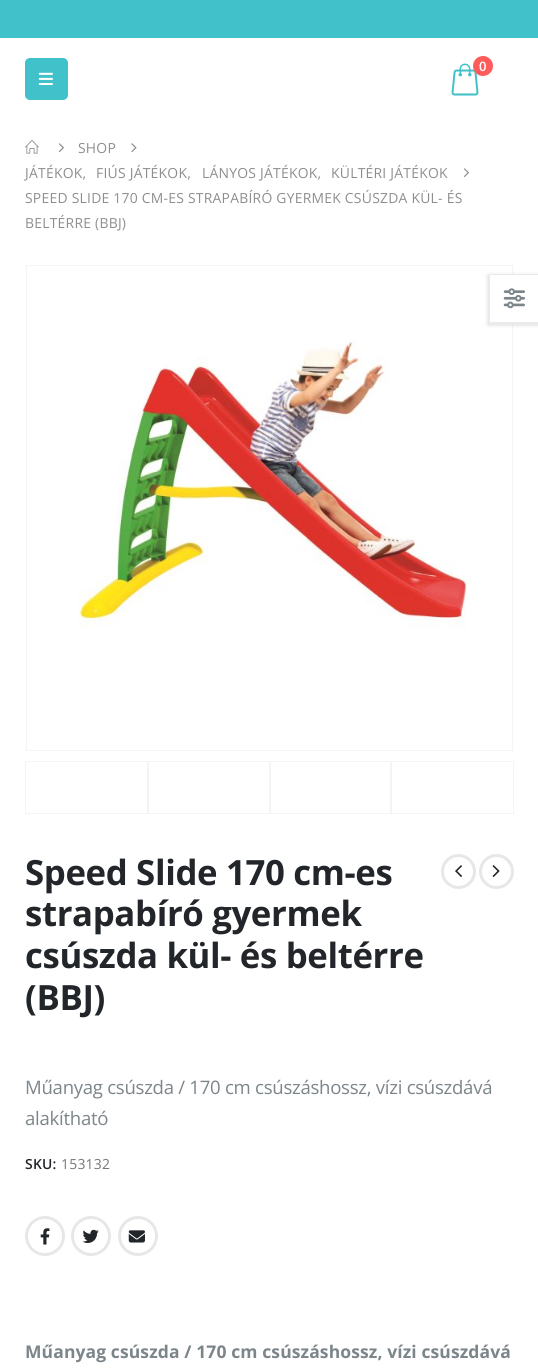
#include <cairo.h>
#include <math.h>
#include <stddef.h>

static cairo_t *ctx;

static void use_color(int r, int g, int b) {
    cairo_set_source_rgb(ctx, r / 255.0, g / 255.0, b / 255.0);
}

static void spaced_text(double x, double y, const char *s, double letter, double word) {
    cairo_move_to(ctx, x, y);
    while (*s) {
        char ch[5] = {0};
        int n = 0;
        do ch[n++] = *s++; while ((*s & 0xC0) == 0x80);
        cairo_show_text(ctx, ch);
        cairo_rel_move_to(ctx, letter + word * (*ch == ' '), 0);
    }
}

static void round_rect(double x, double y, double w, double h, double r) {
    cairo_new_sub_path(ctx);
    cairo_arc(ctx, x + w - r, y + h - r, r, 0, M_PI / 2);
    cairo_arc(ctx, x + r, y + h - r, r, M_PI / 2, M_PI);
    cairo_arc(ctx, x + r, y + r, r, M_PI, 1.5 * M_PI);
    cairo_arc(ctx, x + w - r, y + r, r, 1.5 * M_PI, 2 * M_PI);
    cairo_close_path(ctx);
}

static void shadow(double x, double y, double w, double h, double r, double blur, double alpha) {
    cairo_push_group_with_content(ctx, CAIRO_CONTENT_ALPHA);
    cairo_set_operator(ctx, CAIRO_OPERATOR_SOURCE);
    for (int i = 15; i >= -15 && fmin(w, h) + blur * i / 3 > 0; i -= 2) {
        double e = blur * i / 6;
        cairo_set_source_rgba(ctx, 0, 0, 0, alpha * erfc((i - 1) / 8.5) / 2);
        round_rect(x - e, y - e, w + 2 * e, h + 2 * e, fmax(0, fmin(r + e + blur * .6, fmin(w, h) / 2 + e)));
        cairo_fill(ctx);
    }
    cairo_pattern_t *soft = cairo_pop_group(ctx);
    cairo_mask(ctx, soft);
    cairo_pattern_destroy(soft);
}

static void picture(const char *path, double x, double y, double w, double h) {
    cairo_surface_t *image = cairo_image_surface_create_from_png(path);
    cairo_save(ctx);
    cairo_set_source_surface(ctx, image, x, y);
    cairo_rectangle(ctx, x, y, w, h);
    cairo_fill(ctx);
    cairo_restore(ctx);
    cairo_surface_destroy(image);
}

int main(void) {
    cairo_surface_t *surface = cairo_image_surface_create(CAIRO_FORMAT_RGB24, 538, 1371);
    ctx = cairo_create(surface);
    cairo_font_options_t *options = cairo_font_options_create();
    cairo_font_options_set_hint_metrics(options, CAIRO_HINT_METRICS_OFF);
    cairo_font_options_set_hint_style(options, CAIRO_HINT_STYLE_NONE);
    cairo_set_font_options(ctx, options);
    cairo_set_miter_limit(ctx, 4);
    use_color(255, 255, 255);
    cairo_paint(ctx);
    use_color(65, 193, 201);
    cairo_rectangle(ctx, 0, 0, 538, 38);
    cairo_fill(ctx);
    round_rect(25, 58, 43, 42, 5);
    cairo_fill(ctx);
    picture("img1.png", 38, 72, 15, 13);
    picture("img2.png", 451, 63, 28, 33);
    use_color(255, 91, 91);
    cairo_arc(ctx, 483, 66, 10, 0, 2 * M_PI);
    cairo_fill(ctx);
    cairo_select_font_face(ctx, "Open Sans SemiBold", CAIRO_FONT_SLANT_NORMAL, CAIRO_FONT_WEIGHT_NORMAL);
    cairo_set_font_size(ctx, 13);
    use_color(255, 255, 255);
    spaced_text(479, 71, "0", 0.25, 0);
    picture("img3.png", 25, 140, 14, 14);
    picture("img4.png", 58, 143, 6, 10);
    cairo_select_font_face(ctx, "Open Sans", CAIRO_FONT_SLANT_NORMAL, CAIRO_FONT_WEIGHT_NORMAL);
    cairo_set_font_size(ctx, 13.9);
    use_color(142, 142, 142);
    spaced_text(78, 153, "SHOP", 0.25, 0);
    picture("img5.png", 131, 143, 6, 9);
    spaced_text(25, 178, "JÁTÉKOK,", 0.25, 0);
    spaced_text(96, 178, "FIÚS JÁTÉKOK,", 0.25, 0);
    spaced_text(202, 178, "LÁNYOS JÁTÉKOK,", 0.25, 0);
    spaced_text(331, 178, "KÜLTÉRI JÁTÉKOK", 0.25, 0);
    picture("img4.png", 463, 168, 6, 10);
    spaced_text(25, 203, "SPEED SLIDE 170 CM-ES STRAPABÍRÓ GYERMEK CSÚSZDA KÜL- ÉS", 0.25, 0);
    spaced_text(25, 228, "BELTÉRRE (BBJ)", 0.25, 0);
    cairo_rectangle(ctx, 26.5, 265.5, 486, 485);
    use_color(244, 244, 244);
    cairo_set_line_width(ctx, 1);
    cairo_stroke(ctx);
    use_color(0, 0, 0);
    shadow(488, 275, 50, 50, 0, 2, 0.15);
    use_color(255, 255, 255);
    cairo_rectangle(ctx, 489, 274, 49, 50);
    cairo_fill(ctx);
    use_color(235, 235, 235);
    cairo_new_path(ctx);
    cairo_move_to(ctx, 489, 274);
    cairo_line_to(ctx, 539, 274);
    cairo_line_to(ctx, 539, 275);
    cairo_line_to(ctx, 490, 275);
    cairo_close_path(ctx);
    cairo_move_to(ctx, 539, 324);
    cairo_line_to(ctx, 489, 324);
    cairo_line_to(ctx, 490, 322);
    cairo_line_to(ctx, 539, 322);
    cairo_close_path(ctx);
    cairo_fill(ctx);
    cairo_set_source_rgba(ctx, 0, 0, 0, 0.08);
    cairo_new_path(ctx);
    cairo_move_to(ctx, 489, 324);
    cairo_line_to(ctx, 489, 274);
    cairo_line_to(ctx, 490, 275);
    cairo_line_to(ctx, 490, 322);
    cairo_close_path(ctx);
    cairo_fill(ctx);
    picture("img6.png", 503, 288, 22, 21);
    picture("img7.png", 78, 338, 389, 290);
    cairo_rectangle(ctx, 25.5, 761.5, 122, 52);
    use_color(244, 244, 244);
    cairo_stroke(ctx);
    cairo_rectangle(ctx, 148.5, 761.5, 121, 52);
    cairo_stroke(ctx);
    cairo_rectangle(ctx, 270.5, 761.5, 120, 52);
    cairo_stroke(ctx);
    cairo_rectangle(ctx, 391.5, 761.5, 122, 52);
    cairo_stroke(ctx);
    cairo_select_font_face(ctx, "Open Sans", CAIRO_FONT_SLANT_NORMAL, CAIRO_FONT_WEIGHT_BOLD);
    cairo_set_font_size(ctx, 34.75);
    use_color(34, 37, 41);
    spaced_text(25, 885, "Speed Slide 170 cm-es", -0.35, 0);
    spaced_text(25, 926, "strapabíró gyermek", -0.35, 0);
    spaced_text(25, 968, "csúszda kül- és beltérre", -0.35, 0);
    spaced_text(25, 1010, "(BBJ)", -0.35, 0);
    cairo_new_path(ctx);
    cairo_arc(ctx, 458.5, 871.5, 16, 0, 2 * M_PI);
    use_color(231, 231, 231);
    cairo_set_line_width(ctx, 3);
    cairo_stroke(ctx);
    picture("img8.png", 455, 865, 7, 12);
    cairo_arc(ctx, 496.5, 871.5, 16, 0, 2 * M_PI);
    cairo_stroke(ctx);
    picture("img9.png", 492, 865, 8, 12);
    cairo_select_font_face(ctx, "Open Sans", CAIRO_FONT_SLANT_NORMAL, CAIRO_FONT_WEIGHT_NORMAL);
    cairo_set_font_size(ctx, 18.6);
    use_color(123, 133, 138);
    spaced_text(25, 1094, "Műanyag csúszda / 170 cm csúszáshossz, vízi csúszdává", -0.28, 0);
    spaced_text(25, 1125, "alakítható", -0.28, 0);
    cairo_select_font_face(ctx, "Open Sans SemiBold", CAIRO_FONT_SLANT_NORMAL, CAIRO_FONT_WEIGHT_NORMAL);
    cairo_set_font_size(ctx, 13.9);
    use_color(34, 37, 41);
    spaced_text(25, 1169, "SKU:", 0.25, 0);
    cairo_select_font_face(ctx, "Open Sans", CAIRO_FONT_SLANT_NORMAL, CAIRO_FONT_WEIGHT_NORMAL);
    use_color(119, 119, 119);
    spaced_text(61, 1169, "153132", 0.25, 0);
    cairo_new_path(ctx);
    cairo_arc(ctx, 45, 1236, 18.5, 0, 2 * M_PI);
    use_color(231, 231, 231);
    cairo_stroke(ctx);
    picture("img10.png", 40, 1228, 10, 17);
    cairo_arc(ctx, 91, 1236, 18.5, 0, 2 * M_PI);
    cairo_stroke(ctx);
    picture("img11.png", 82, 1229, 17, 14);
    cairo_arc(ctx, 138, 1236, 18.5, 0, 2 * M_PI);
    cairo_stroke(ctx);
    picture("img12.png", 128, 1230, 17, 13);
    cairo_select_font_face(ctx, "Open Sans", CAIRO_FONT_SLANT_NORMAL, CAIRO_FONT_WEIGHT_BOLD);
    cairo_set_font_size(ctx, 17.5);
    use_color(123, 133, 138);
    spaced_text(25, 1358, "Műanyag csúszda / 170 cm csúszáshossz, vízi csúszdává", 0.1, 0);
    cairo_surface_write_to_png(surface, "result.png");
    cairo_font_options_destroy(options);
    cairo_destroy(ctx);
    cairo_surface_destroy(surface);
    return 0;
}
